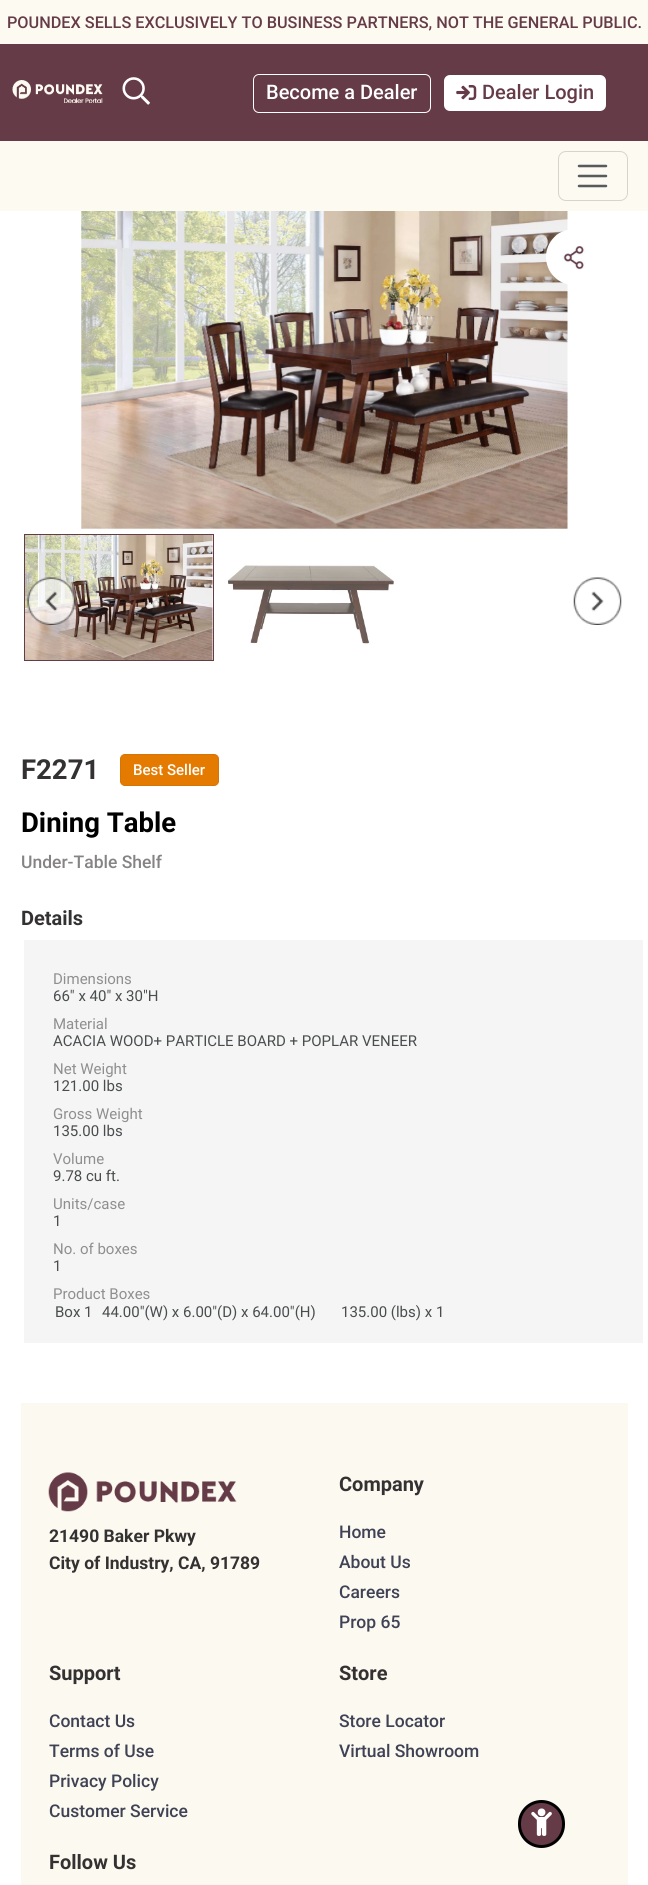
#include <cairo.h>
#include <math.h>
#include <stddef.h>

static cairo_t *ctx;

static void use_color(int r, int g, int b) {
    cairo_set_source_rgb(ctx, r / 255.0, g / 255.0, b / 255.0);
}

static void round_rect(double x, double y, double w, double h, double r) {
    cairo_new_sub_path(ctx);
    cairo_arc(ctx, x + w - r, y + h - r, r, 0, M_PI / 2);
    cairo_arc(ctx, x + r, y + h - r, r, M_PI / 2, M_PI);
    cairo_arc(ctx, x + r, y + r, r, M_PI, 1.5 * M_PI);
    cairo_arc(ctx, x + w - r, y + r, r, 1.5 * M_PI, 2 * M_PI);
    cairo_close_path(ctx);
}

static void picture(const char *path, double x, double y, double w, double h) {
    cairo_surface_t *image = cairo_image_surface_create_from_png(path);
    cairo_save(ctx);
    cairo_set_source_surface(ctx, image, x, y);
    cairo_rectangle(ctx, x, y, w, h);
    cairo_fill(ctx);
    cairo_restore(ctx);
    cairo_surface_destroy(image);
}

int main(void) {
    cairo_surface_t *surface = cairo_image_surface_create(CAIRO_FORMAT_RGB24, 648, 1885);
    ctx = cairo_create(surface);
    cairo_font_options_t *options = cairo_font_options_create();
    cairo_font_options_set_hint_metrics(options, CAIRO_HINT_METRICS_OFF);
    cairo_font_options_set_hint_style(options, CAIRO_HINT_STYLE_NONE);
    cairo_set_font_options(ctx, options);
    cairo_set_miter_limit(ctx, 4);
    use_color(255, 255, 255);
    cairo_paint(ctx);
    use_color(252, 250, 241);
    cairo_rectangle(ctx, 0, 0, 648, 44);
    cairo_fill(ctx);
    cairo_select_font_face(ctx, "Roboto Medium", CAIRO_FONT_SLANT_NORMAL, CAIRO_FONT_WEIGHT_NORMAL);
    cairo_set_font_size(ctx, 16.25);
    use_color(101, 59, 71);
    cairo_move_to(ctx, 7, 28);
    cairo_show_text(ctx, "POUNDEX SELLS EXCLUSIVELY TO BUSINESS PARTNERS, NOT THE GENERAL PUBLIC.");
    cairo_rectangle(ctx, 0, 44, 648, 97);
    cairo_fill(ctx);
    picture("img1.png", 12, 80, 91, 23);
    picture("img2.png", 122, 77, 28, 28);
    round_rect(253.5, 74.5, 177, 38, 5.5);
    use_color(255, 255, 255);
    cairo_set_line_width(ctx, 1);
    cairo_stroke(ctx);
    cairo_set_font_size(ctx, 20);
    cairo_move_to(ctx, 266, 99);
    cairo_show_text(ctx, "Become a Dealer");
    round_rect(444, 75, 162, 36, 6);
    cairo_fill(ctx);
    picture("img3.png", 456, 85, 21, 15);
    use_color(101, 59, 71);
    cairo_move_to(ctx, 482, 99);
    cairo_show_text(ctx, "Dealer Login");
    use_color(252, 250, 241);
    cairo_rectangle(ctx, 0, 141, 648, 70);
    cairo_fill(ctx);
    round_rect(558.5, 151.5, 69, 49, 7.5);
    use_color(214, 213, 205);
    cairo_stroke(ctx);
    cairo_new_path(ctx);
    cairo_move_to(ctx, 579, 166);
    cairo_line_to(ctx, 606, 166);
    cairo_move_to(ctx, 579, 176);
    cairo_line_to(ctx, 606, 176);
    cairo_move_to(ctx, 579, 186);
    cairo_line_to(ctx, 606, 186);
    use_color(88, 90, 91);
    cairo_set_line_width(ctx, 2.5);
    cairo_set_line_cap(ctx, CAIRO_LINE_CAP_ROUND);
    cairo_stroke(ctx);
    picture("img4.png", 81, 211, 487, 318);
    use_color(255, 255, 255);
    round_rect(546, 229, 57, 56, 28);
    cairo_fill(ctx);
    picture("img5.png", 562, 246, 24, 24);
    picture("img6.png", 25, 535, 188, 125);
    cairo_rectangle(ctx, 24.5, 534.5, 189, 126);
    use_color(101, 59, 71);
    cairo_set_line_width(ctx, 1);
    cairo_set_line_cap(ctx, CAIRO_LINE_CAP_BUTT);
    cairo_stroke(ctx);
    picture("img7.png", 227, 563, 168, 82);
    picture("img8.png", 27, 577, 49, 48);
    picture("img9.png", 573, 577, 49, 48);
    cairo_select_font_face(ctx, "Roboto", CAIRO_FONT_SLANT_NORMAL, CAIRO_FONT_WEIGHT_BOLD);
    cairo_set_font_size(ctx, 27.5);
    use_color(52, 49, 50);
    cairo_move_to(ctx, 21, 779);
    cairo_show_text(ctx, "F2271");
    use_color(228, 122, 0);
    round_rect(120.5, 754.5, 98, 31, 4.5);
    cairo_fill_preserve(ctx);
    use_color(214, 116, 5);
    cairo_stroke(ctx);
    cairo_select_font_face(ctx, "Roboto Medium", CAIRO_FONT_SLANT_NORMAL, CAIRO_FONT_WEIGHT_NORMAL);
    cairo_set_font_size(ctx, 15);
    use_color(255, 255, 255);
    cairo_move_to(ctx, 133, 775);
    cairo_show_text(ctx, "Best Seller");
    cairo_select_font_face(ctx, "Roboto", CAIRO_FONT_SLANT_NORMAL, CAIRO_FONT_WEIGHT_BOLD);
    cairo_set_font_size(ctx, 27.5);
    use_color(0, 0, 0);
    cairo_move_to(ctx, 21, 832);
    cairo_show_text(ctx, "Dining Table");
    cairo_select_font_face(ctx, "Roboto Medium", CAIRO_FONT_SLANT_NORMAL, CAIRO_FONT_WEIGHT_NORMAL);
    cairo_set_font_size(ctx, 17.5);
    use_color(133, 131, 132);
    cairo_move_to(ctx, 21, 868);
    cairo_show_text(ctx, "Under-Table Shelf");
    cairo_select_font_face(ctx, "Roboto", CAIRO_FONT_SLANT_NORMAL, CAIRO_FONT_WEIGHT_BOLD);
    cairo_set_font_size(ctx, 20);
    use_color(52, 49, 50);
    cairo_move_to(ctx, 21, 925);
    cairo_show_text(ctx, "Details");
    use_color(245, 245, 245);
    cairo_rectangle(ctx, 24, 940, 619, 403);
    cairo_fill(ctx);
    cairo_select_font_face(ctx, "Roboto", CAIRO_FONT_SLANT_NORMAL, CAIRO_FONT_WEIGHT_NORMAL);
    cairo_set_font_size(ctx, 15);
    use_color(143, 143, 143);
    cairo_move_to(ctx, 53, 984);
    cairo_show_text(ctx, "Dimensions");
    use_color(74, 77, 78);
    cairo_move_to(ctx, 53, 1001);
    cairo_show_text(ctx, "66\" x 40\" x 30\"H");
    use_color(143, 143, 143);
    cairo_move_to(ctx, 53, 1029);
    cairo_show_text(ctx, "Material");
    use_color(74, 77, 78);
    cairo_move_to(ctx, 53, 1046);
    cairo_show_text(ctx, "ACACIA WOOD+ PARTICLE BOARD + POPLAR VENEER");
    use_color(143, 143, 143);
    cairo_move_to(ctx, 53, 1074);
    cairo_show_text(ctx, "Net Weight");
    use_color(74, 77, 78);
    cairo_move_to(ctx, 53, 1091);
    cairo_show_text(ctx, "121.00 lbs");
    use_color(143, 143, 143);
    cairo_move_to(ctx, 53, 1119);
    cairo_show_text(ctx, "Gross Weight");
    use_color(74, 77, 78);
    cairo_move_to(ctx, 53, 1136);
    cairo_show_text(ctx, "135.00 lbs");
    use_color(143, 143, 143);
    cairo_move_to(ctx, 53, 1164);
    cairo_show_text(ctx, "Volume");
    use_color(74, 77, 78);
    cairo_move_to(ctx, 53, 1181);
    cairo_show_text(ctx, "9.78 cu ft.");
    use_color(143, 143, 143);
    cairo_move_to(ctx, 53, 1209);
    cairo_show_text(ctx, "Units/case");
    use_color(74, 77, 78);
    cairo_move_to(ctx, 53, 1226);
    cairo_show_text(ctx, "1");
    use_color(143, 143, 143);
    cairo_move_to(ctx, 53, 1254);
    cairo_show_text(ctx, "No. of boxes");
    use_color(74, 77, 78);
    cairo_move_to(ctx, 53, 1271);
    cairo_show_text(ctx, "1");
    use_color(143, 143, 143);
    cairo_move_to(ctx, 53, 1299);
    cairo_show_text(ctx, "Product Boxes");
    use_color(74, 77, 78);
    cairo_move_to(ctx, 55, 1317);
    cairo_show_text(ctx, "Box 1");
    cairo_move_to(ctx, 102, 1317);
    cairo_show_text(ctx, "44.00\"(W) x 6.00\"(D) x 64.00\"(H)");
    cairo_move_to(ctx, 341, 1317);
    cairo_show_text(ctx, "135.00 (lbs) x 1");
    use_color(252, 249, 240);
    cairo_rectangle(ctx, 21, 1403, 607, 482);
    cairo_fill(ctx);
    picture("img10.png", 48, 1472, 189, 40);
    cairo_select_font_face(ctx, "Roboto", CAIRO_FONT_SLANT_NORMAL, CAIRO_FONT_WEIGHT_BOLD);
    cairo_set_font_size(ctx, 17.5);
    use_color(52, 49, 50);
    cairo_move_to(ctx, 49, 1542);
    cairo_show_text(ctx, "21490 Baker Pkwy");
    cairo_move_to(ctx, 49, 1569);
    cairo_show_text(ctx, "City of Industry, CA, 91789");
    cairo_set_font_size(ctx, 20);
    cairo_move_to(ctx, 339, 1491);
    cairo_show_text(ctx, "Company");
    cairo_select_font_face(ctx, "Roboto Medium", CAIRO_FONT_SLANT_NORMAL, CAIRO_FONT_WEIGHT_NORMAL);
    cairo_set_font_size(ctx, 17.5);
    use_color(63, 66, 84);
    cairo_move_to(ctx, 339, 1538);
    cairo_show_text(ctx, "Home");
    cairo_move_to(ctx, 339, 1568);
    cairo_show_text(ctx, "About Us");
    cairo_move_to(ctx, 339, 1598);
    cairo_show_text(ctx, "Careers");
    cairo_move_to(ctx, 339, 1628);
    cairo_show_text(ctx, "Prop 65");
    cairo_select_font_face(ctx, "Roboto", CAIRO_FONT_SLANT_NORMAL, CAIRO_FONT_WEIGHT_BOLD);
    cairo_set_font_size(ctx, 20);
    use_color(52, 49, 50);
    cairo_move_to(ctx, 49, 1680);
    cairo_show_text(ctx, "Support");
    cairo_select_font_face(ctx, "Roboto Medium", CAIRO_FONT_SLANT_NORMAL, CAIRO_FONT_WEIGHT_NORMAL);
    cairo_set_font_size(ctx, 17.5);
    use_color(63, 66, 84);
    cairo_move_to(ctx, 49, 1727);
    cairo_show_text(ctx, "Contact Us");
    cairo_move_to(ctx, 49, 1757);
    cairo_show_text(ctx, "Terms of Use");
    cairo_move_to(ctx, 49, 1787);
    cairo_show_text(ctx, "Privacy Policy");
    cairo_move_to(ctx, 49, 1817);
    cairo_show_text(ctx, "Customer Service");
    cairo_select_font_face(ctx, "Roboto", CAIRO_FONT_SLANT_NORMAL, CAIRO_FONT_WEIGHT_BOLD);
    cairo_set_font_size(ctx, 20);
    use_color(52, 49, 50);
    cairo_move_to(ctx, 339, 1680);
    cairo_show_text(ctx, "Store");
    cairo_select_font_face(ctx, "Roboto Medium", CAIRO_FONT_SLANT_NORMAL, CAIRO_FONT_WEIGHT_NORMAL);
    cairo_set_font_size(ctx, 17.5);
    use_color(63, 66, 84);
    cairo_move_to(ctx, 339, 1727);
    cairo_show_text(ctx, "Store Locator");
    cairo_move_to(ctx, 339, 1757);
    cairo_show_text(ctx, "Virtual Showroom");
    cairo_select_font_face(ctx, "Roboto", CAIRO_FONT_SLANT_NORMAL, CAIRO_FONT_WEIGHT_BOLD);
    cairo_set_font_size(ctx, 20);
    use_color(52, 49, 50);
    cairo_move_to(ctx, 49, 1869);
    cairo_show_text(ctx, "Follow Us");
    use_color(101, 59, 71);
    round_rect(519.5, 1801.5, 44, 45, 22);
    cairo_fill_preserve(ctx);
    use_color(0, 0, 0);
    cairo_set_line_width(ctx, 3);
    cairo_stroke(ctx);
    picture("img11.png", 531, 1808, 21, 28);
    cairo_surface_write_to_png(surface, "result.png");
    cairo_font_options_destroy(options);
    cairo_destroy(ctx);
    cairo_surface_destroy(surface);
    return 0;
}
